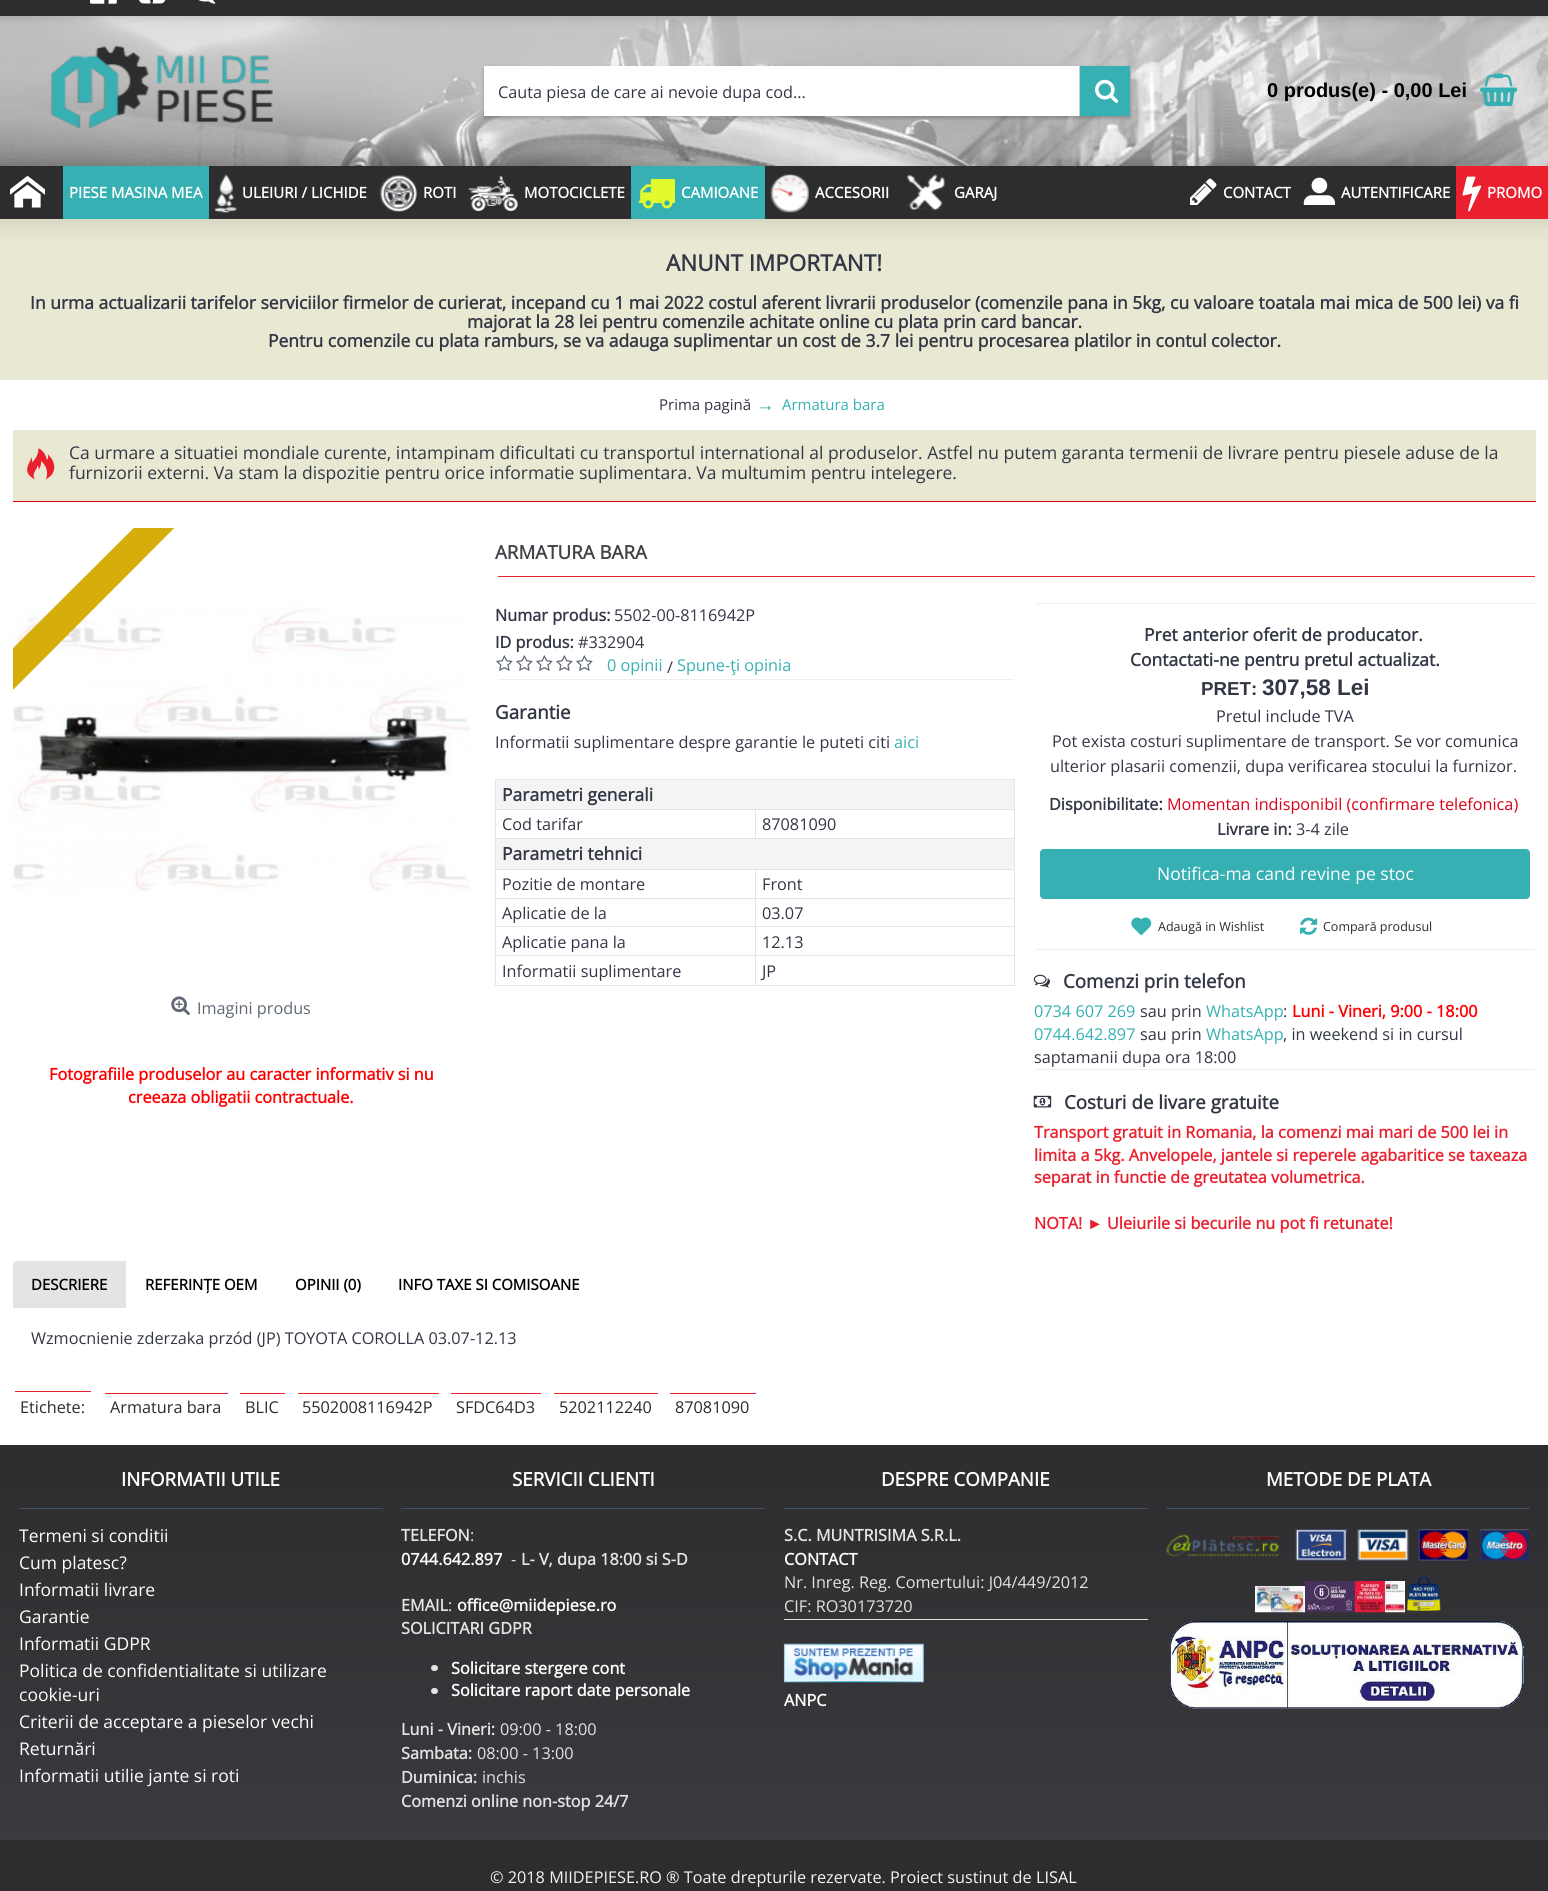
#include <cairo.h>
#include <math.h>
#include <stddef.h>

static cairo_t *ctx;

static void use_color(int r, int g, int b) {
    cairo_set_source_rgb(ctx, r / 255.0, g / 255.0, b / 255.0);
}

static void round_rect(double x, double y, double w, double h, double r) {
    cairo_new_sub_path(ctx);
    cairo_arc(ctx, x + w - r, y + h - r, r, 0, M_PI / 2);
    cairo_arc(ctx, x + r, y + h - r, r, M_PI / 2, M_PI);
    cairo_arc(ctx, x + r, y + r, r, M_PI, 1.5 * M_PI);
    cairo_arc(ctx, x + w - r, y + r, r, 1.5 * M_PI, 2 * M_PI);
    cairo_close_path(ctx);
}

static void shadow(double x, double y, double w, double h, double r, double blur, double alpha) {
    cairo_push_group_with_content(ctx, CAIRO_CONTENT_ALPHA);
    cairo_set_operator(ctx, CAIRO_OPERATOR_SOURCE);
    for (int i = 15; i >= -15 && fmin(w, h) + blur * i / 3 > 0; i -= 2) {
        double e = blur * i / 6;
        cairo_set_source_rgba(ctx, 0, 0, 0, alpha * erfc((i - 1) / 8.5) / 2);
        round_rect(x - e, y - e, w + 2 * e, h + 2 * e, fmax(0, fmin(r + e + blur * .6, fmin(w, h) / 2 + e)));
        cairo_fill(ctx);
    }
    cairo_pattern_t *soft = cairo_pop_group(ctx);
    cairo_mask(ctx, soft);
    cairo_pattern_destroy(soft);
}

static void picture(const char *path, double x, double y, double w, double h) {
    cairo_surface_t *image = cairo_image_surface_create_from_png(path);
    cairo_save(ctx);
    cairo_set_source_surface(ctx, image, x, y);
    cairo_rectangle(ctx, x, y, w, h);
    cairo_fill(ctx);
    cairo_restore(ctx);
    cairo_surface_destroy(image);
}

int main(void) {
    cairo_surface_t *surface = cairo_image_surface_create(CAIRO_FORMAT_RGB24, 1548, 1891);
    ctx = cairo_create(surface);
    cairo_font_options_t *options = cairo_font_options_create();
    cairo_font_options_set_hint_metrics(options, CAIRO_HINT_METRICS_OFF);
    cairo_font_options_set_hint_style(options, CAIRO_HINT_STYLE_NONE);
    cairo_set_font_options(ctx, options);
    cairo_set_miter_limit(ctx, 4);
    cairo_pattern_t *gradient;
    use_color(233, 232, 211);
    cairo_paint(ctx);
    picture("img1.png", 0, 16, 1548, 150);
    use_color(0, 0, 0);
    shadow(0, -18, 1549, 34, 0, 6, 0.2);
    use_color(45, 45, 47);
    cairo_rectangle(ctx, 0, 0, 1548, 16);
    cairo_fill(ctx);
    picture("img2.png", 90, 0, 27, 4);
    picture("img3.png", 139, 0, 27, 4);
    picture("img4.png", 198, 0, 18, 4);
    picture("img5.png", 50, 45, 223, 84);
    use_color(0, 0, 0);
    shadow(484, 68, 646, 50, 0, 2, 0.25);
    use_color(255, 255, 255);
    cairo_rectangle(ctx, 484, 66, 595, 50);
    cairo_fill(ctx);
    cairo_select_font_face(ctx, "Open Sans", CAIRO_FONT_SLANT_NORMAL, CAIRO_FONT_WEIGHT_NORMAL);
    cairo_set_font_size(ctx, 16.25);
    use_color(51, 55, 69);
    cairo_move_to(ctx, 498, 98);
    cairo_show_text(ctx, "Cauta piesa de care ai nevoie dupa cod...");
    use_color(54, 176, 179);
    cairo_rectangle(ctx, 1080, 66, 50, 50);
    cairo_fill(ctx);
    use_color(204, 204, 204);
    cairo_rectangle(ctx, 1079, 66, 1, 50);
    cairo_fill(ctx);
    picture("img6.png", 1095, 79, 24, 24);
    cairo_select_font_face(ctx, "Liberation Sans", CAIRO_FONT_SLANT_NORMAL, CAIRO_FONT_WEIGHT_BOLD);
    cairo_set_font_size(ctx, 20);
    use_color(0, 0, 0);
    cairo_move_to(ctx, 1267, 97);
    cairo_show_text(ctx, "0 produs(e) - 0,00 Lei");
    picture("img7.png", 1480, 73, 38, 34);
    use_color(45, 45, 47);
    cairo_rectangle(ctx, 0, 166, 1456, 53);
    cairo_fill(ctx);
    cairo_save(ctx);
    cairo_set_fill_rule(ctx, CAIRO_FILL_RULE_EVEN_ODD);
    cairo_new_path(ctx);
    cairo_move_to(ctx, 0, 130);
    cairo_line_to(ctx, 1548, 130);
    cairo_line_to(ctx, 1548, 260);
    cairo_line_to(ctx, 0, 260);
    cairo_close_path(ctx);
    cairo_move_to(ctx, 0, 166);
    cairo_line_to(ctx, 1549, 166);
    cairo_line_to(ctx, 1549, 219);
    cairo_line_to(ctx, 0, 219);
    cairo_close_path(ctx);
    cairo_clip(ctx);
    use_color(0, 0, 0);
    shadow(0, 169, 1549, 52, 0, 12.5, 0.14);
    cairo_restore(ctx);
    picture("img8.png", 10, 175, 35, 33);
    use_color(54, 176, 179);
    cairo_rectangle(ctx, 63, 166, 146, 53);
    cairo_fill(ctx);
    cairo_select_font_face(ctx, "Open Sans", CAIRO_FONT_SLANT_NORMAL, CAIRO_FONT_WEIGHT_BOLD);
    cairo_set_font_size(ctx, 15);
    use_color(255, 255, 255);
    cairo_move_to(ctx, 69, 198);
    cairo_show_text(ctx, "PIESE MASINA MEA");
    picture("img9.png", 214, 174, 23, 39);
    cairo_move_to(ctx, 242, 198);
    cairo_show_text(ctx, "ULEIURI / LICHIDE");
    picture("img10.png", 379, 174, 39, 38);
    cairo_move_to(ctx, 423, 198);
    cairo_show_text(ctx, "ROTI");
    picture("img11.png", 468, 176, 50, 35);
    cairo_move_to(ctx, 524, 198);
    cairo_show_text(ctx, "MOTOCICLETE");
    use_color(54, 176, 179);
    cairo_rectangle(ctx, 631, 166, 134, 53);
    cairo_fill(ctx);
    picture("img12.png", 638, 178, 37, 31);
    use_color(255, 255, 255);
    cairo_move_to(ctx, 681, 198);
    cairo_show_text(ctx, "CAMIOANE");
    picture("img13.png", 770, 174, 39, 39);
    cairo_move_to(ctx, 815, 198);
    cairo_show_text(ctx, "ACCESORII");
    picture("img14.png", 906, 174, 39, 37);
    cairo_move_to(ctx, 954, 198);
    cairo_show_text(ctx, "GARAJ");
    picture("img15.png", 1190, 178, 27, 27);
    cairo_move_to(ctx, 1223, 198);
    cairo_show_text(ctx, "CONTACT");
    picture("img16.png", 1303, 177, 32, 28);
    cairo_move_to(ctx, 1341, 198);
    cairo_show_text(ctx, "AUTENTIFICARE");
    use_color(234, 32, 46);
    cairo_rectangle(ctx, 1456, 166, 92, 53);
    cairo_fill(ctx);
    picture("img17.png", 1462, 176, 20, 36);
    use_color(255, 255, 255);
    cairo_move_to(ctx, 1487, 198);
    cairo_show_text(ctx, "PROMO");
    cairo_set_font_size(ctx, 22.5);
    use_color(51, 55, 69);
    cairo_move_to(ctx, 666, 271);
    cairo_show_text(ctx, "ANUNT IMPORTANT!");
    cairo_set_font_size(ctx, 17.5);
    cairo_move_to(ctx, 30, 309);
    cairo_show_text(ctx, "In urma actualizarii tarifelor serviciilor firmelor de curierat, incepand cu 1 mai 2022 costul aferent livrarii produselor (comenzile pana in 5kg, cu valoare toatala mai mica de 500 lei) va fi");
    cairo_move_to(ctx, 467, 328);
    cairo_show_text(ctx, "majorat la 28 lei pentru comenzile achitate online cu plata prin card bancar.");
    cairo_move_to(ctx, 268, 347);
    cairo_show_text(ctx, "Pentru comenzile cu plata ramburs, se va adauga suplimentar un cost de 3.7 lei pentru procesarea platilor in contul colector.");
    use_color(255, 255, 255);
    cairo_rectangle(ctx, 0, 380, 1548, 1065);
    cairo_fill(ctx);
    cairo_select_font_face(ctx, "Open Sans", CAIRO_FONT_SLANT_NORMAL, CAIRO_FONT_WEIGHT_NORMAL);
    cairo_set_font_size(ctx, 15);
    use_color(51, 55, 69);
    cairo_move_to(ctx, 659, 410);
    cairo_show_text(ctx, "Prima pagină");
    cairo_select_font_face(ctx, "Liberation Serif", CAIRO_FONT_SLANT_NORMAL, CAIRO_FONT_WEIGHT_NORMAL);
    cairo_set_font_size(ctx, 18.75);
    use_color(54, 176, 179);
    cairo_move_to(ctx, 756, 411);
    cairo_show_text(ctx, "→");
    cairo_select_font_face(ctx, "Open Sans", CAIRO_FONT_SLANT_NORMAL, CAIRO_FONT_WEIGHT_NORMAL);
    cairo_set_font_size(ctx, 15);
    cairo_move_to(ctx, 782, 410);
    cairo_show_text(ctx, "Armatura bara");
    use_color(233, 232, 211);
    cairo_rectangle(ctx, 13, 430, 1523, 71);
    cairo_fill(ctx);
    use_color(221, 0, 23);
    cairo_rectangle(ctx, 13, 501, 1523, 1);
    cairo_fill(ctx);
    picture("img18.png", 27, 448, 28, 32);
    cairo_set_font_size(ctx, 17.5);
    use_color(51, 55, 69);
    cairo_move_to(ctx, 69, 459);
    cairo_show_text(ctx, "Ca urmare a situatiei mondiale curente, intampinam dificultati cu transportul international al produselor. Astfel nu putem garanta termenii de livrare pentru piesele aduse de la");
    cairo_move_to(ctx, 69, 479);
    cairo_show_text(ctx, "furnizorii externi. Va stam la dispozitie pentru orice informatie suplimentara. Va multumim pentru intelegere.");
    picture("img19.png", 12, 604, 458, 289);
    cairo_save(ctx);
    cairo_rectangle(ctx, 13, 528, 1523, 708);
    cairo_clip(ctx);
    use_color(214, 174, 12);
    cairo_new_path(ctx);
    cairo_move_to(ctx, -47, 708);
    cairo_line_to(ctx, 232, 430);
    cairo_line_to(ctx, 252, 450);
    cairo_line_to(ctx, -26, 729);
    cairo_close_path(ctx);
    cairo_fill(ctx);
    cairo_restore(ctx);
    picture("img20.png", 171, 996, 19, 19);
    cairo_set_font_size(ctx, 16.25);
    use_color(95, 104, 116);
    cairo_move_to(ctx, 197, 1014);
    cairo_show_text(ctx, "Imagini produs");
    cairo_select_font_face(ctx, "Open Sans", CAIRO_FONT_SLANT_NORMAL, CAIRO_FONT_WEIGHT_BOLD);
    use_color(255, 0, 0);
    cairo_move_to(ctx, 49, 1080);
    cairo_show_text(ctx, "Fotografiile produselor au caracter informativ si nu");
    cairo_move_to(ctx, 128, 1103);
    cairo_show_text(ctx, "creeaza obligatii contractuale.");
    use_color(234, 32, 46);
    cairo_rectangle(ctx, 498, 576, 1037, 1);
    cairo_fill(ctx);
    cairo_set_font_size(ctx, 18.75);
    use_color(68, 67, 73);
    cairo_move_to(ctx, 495, 559);
    cairo_show_text(ctx, "ARMATURA BARA");
    cairo_set_font_size(ctx, 16.25);
    use_color(51, 55, 69);
    cairo_move_to(ctx, 495, 621);
    cairo_show_text(ctx, "Numar produs:");
    cairo_select_font_face(ctx, "Open Sans", CAIRO_FONT_SLANT_NORMAL, CAIRO_FONT_WEIGHT_NORMAL);
    cairo_move_to(ctx, 614, 621);
    cairo_show_text(ctx, "5502-00-8116942P");
    cairo_select_font_face(ctx, "Open Sans", CAIRO_FONT_SLANT_NORMAL, CAIRO_FONT_WEIGHT_BOLD);
    cairo_move_to(ctx, 495, 648);
    cairo_show_text(ctx, "ID produs:");
    cairo_select_font_face(ctx, "Open Sans", CAIRO_FONT_SLANT_NORMAL, CAIRO_FONT_WEIGHT_NORMAL);
    cairo_move_to(ctx, 578, 648);
    cairo_show_text(ctx, "#332904");
    picture("img21.png", 496, 655, 17, 16);
    picture("img21.png", 516, 655, 17, 16);
    picture("img21.png", 536, 655, 17, 16);
    picture("img21.png", 556, 655, 17, 16);
    picture("img21.png", 576, 655, 17, 16);
    use_color(54, 176, 179);
    cairo_move_to(ctx, 607, 671);
    cairo_show_text(ctx, "0 opinii");
    use_color(51, 55, 69);
    cairo_move_to(ctx, 667, 673);
    cairo_show_text(ctx, "/");
    use_color(54, 176, 179);
    cairo_move_to(ctx, 677, 671);
    cairo_show_text(ctx, "Spune-ţi opinia");
    use_color(238, 238, 238);
    cairo_rectangle(ctx, 498, 679, 516, 1);
    cairo_fill(ctx);
    cairo_select_font_face(ctx, "Open Sans", CAIRO_FONT_SLANT_NORMAL, CAIRO_FONT_WEIGHT_BOLD);
    cairo_set_font_size(ctx, 18.75);
    use_color(51, 55, 69);
    cairo_move_to(ctx, 495, 719);
    cairo_show_text(ctx, "Garantie");
    cairo_select_font_face(ctx, "Open Sans", CAIRO_FONT_SLANT_NORMAL, CAIRO_FONT_WEIGHT_NORMAL);
    cairo_set_font_size(ctx, 16.25);
    cairo_move_to(ctx, 495, 748);
    cairo_show_text(ctx, "Informatii suplimentare despre garantie le puteti citi");
    use_color(54, 176, 179);
    cairo_move_to(ctx, 894, 748);
    cairo_show_text(ctx, "aici");
    use_color(228, 228, 228);
    cairo_rectangle(ctx, 495, 779, 520, 1);
    cairo_fill(ctx);
    cairo_rectangle(ctx, 495, 779, 1, 207);
    cairo_fill(ctx);
    use_color(244, 244, 244);
    cairo_rectangle(ctx, 496, 780, 518, 29);
    cairo_fill(ctx);
    use_color(228, 228, 228);
    cairo_rectangle(ctx, 1014, 779, 1, 207);
    cairo_fill(ctx);
    cairo_rectangle(ctx, 755, 838, 260, 1);
    cairo_fill(ctx);
    cairo_rectangle(ctx, 755, 809, 1, 30);
    cairo_fill(ctx);
    cairo_rectangle(ctx, 495, 809, 520, 1);
    cairo_fill(ctx);
    cairo_select_font_face(ctx, "Open Sans", CAIRO_FONT_SLANT_NORMAL, CAIRO_FONT_WEIGHT_BOLD);
    cairo_set_font_size(ctx, 17.5);
    use_color(51, 55, 69);
    cairo_move_to(ctx, 502, 801);
    cairo_show_text(ctx, "Parametri generali");
    use_color(228, 228, 228);
    cairo_rectangle(ctx, 495, 838, 261, 1);
    cairo_fill(ctx);
    cairo_select_font_face(ctx, "Open Sans", CAIRO_FONT_SLANT_NORMAL, CAIRO_FONT_WEIGHT_NORMAL);
    cairo_set_font_size(ctx, 16.25);
    use_color(51, 55, 69);
    cairo_move_to(ctx, 502, 830);
    cairo_show_text(ctx, "Cod tarifar");
    cairo_move_to(ctx, 762, 830);
    cairo_show_text(ctx, "87081090");
    use_color(244, 244, 244);
    cairo_rectangle(ctx, 496, 839, 518, 30);
    cairo_fill(ctx);
    use_color(228, 228, 228);
    cairo_rectangle(ctx, 755, 985, 260, 1);
    cairo_fill(ctx);
    cairo_rectangle(ctx, 755, 955, 1, 31);
    cairo_fill(ctx);
    cairo_rectangle(ctx, 755, 955, 260, 1);
    cairo_fill(ctx);
    cairo_rectangle(ctx, 755, 926, 1, 30);
    cairo_fill(ctx);
    cairo_rectangle(ctx, 755, 926, 260, 1);
    cairo_fill(ctx);
    cairo_rectangle(ctx, 755, 898, 1, 30);
    cairo_fill(ctx);
    cairo_rectangle(ctx, 755, 898, 260, 1);
    cairo_fill(ctx);
    cairo_rectangle(ctx, 755, 869, 1, 30);
    cairo_fill(ctx);
    cairo_rectangle(ctx, 495, 869, 520, 1);
    cairo_fill(ctx);
    cairo_select_font_face(ctx, "Open Sans", CAIRO_FONT_SLANT_NORMAL, CAIRO_FONT_WEIGHT_BOLD);
    cairo_set_font_size(ctx, 17.5);
    use_color(51, 55, 69);
    cairo_move_to(ctx, 502, 860);
    cairo_show_text(ctx, "Parametri tehnici");
    use_color(228, 228, 228);
    cairo_rectangle(ctx, 495, 898, 261, 1);
    cairo_fill(ctx);
    cairo_select_font_face(ctx, "Open Sans", CAIRO_FONT_SLANT_NORMAL, CAIRO_FONT_WEIGHT_NORMAL);
    cairo_set_font_size(ctx, 16.25);
    use_color(51, 55, 69);
    cairo_move_to(ctx, 502, 890);
    cairo_show_text(ctx, "Pozitie de montare");
    cairo_move_to(ctx, 762, 890);
    cairo_show_text(ctx, "Front");
    use_color(228, 228, 228);
    cairo_rectangle(ctx, 495, 926, 261, 1);
    cairo_fill(ctx);
    use_color(51, 55, 69);
    cairo_move_to(ctx, 502, 919);
    cairo_show_text(ctx, "Aplicatie de la");
    cairo_move_to(ctx, 762, 919);
    cairo_show_text(ctx, "03.07");
    use_color(228, 228, 228);
    cairo_rectangle(ctx, 495, 955, 261, 1);
    cairo_fill(ctx);
    use_color(51, 55, 69);
    cairo_move_to(ctx, 502, 948);
    cairo_show_text(ctx, "Aplicatie pana la");
    cairo_move_to(ctx, 762, 948);
    cairo_show_text(ctx, "12.13");
    use_color(228, 228, 228);
    cairo_rectangle(ctx, 495, 985, 261, 1);
    cairo_fill(ctx);
    use_color(51, 55, 69);
    cairo_move_to(ctx, 502, 977);
    cairo_show_text(ctx, "Informatii suplimentare");
    cairo_move_to(ctx, 762, 977);
    cairo_show_text(ctx, "JP");
    use_color(238, 238, 238);
    cairo_rectangle(ctx, 1036, 603, 499, 1);
    cairo_fill(ctx);
    cairo_select_font_face(ctx, "Open Sans", CAIRO_FONT_SLANT_NORMAL, CAIRO_FONT_WEIGHT_BOLD);
    cairo_set_font_size(ctx, 17.5);
    use_color(51, 55, 69);
    cairo_move_to(ctx, 1144, 641);
    cairo_show_text(ctx, "Pret anterior oferit de producator.");
    cairo_move_to(ctx, 1130, 666);
    cairo_show_text(ctx, "Contactati-ne pentru pretul actualizat.");
    cairo_select_font_face(ctx, "Liberation Sans", CAIRO_FONT_SLANT_NORMAL, CAIRO_FONT_WEIGHT_BOLD);
    cairo_set_font_size(ctx, 18.75);
    cairo_move_to(ctx, 1201, 695);
    cairo_show_text(ctx, "PRET:");
    cairo_set_font_size(ctx, 22.5);
    cairo_move_to(ctx, 1262, 695);
    cairo_show_text(ctx, "307,58 Lei");
    cairo_select_font_face(ctx, "Open Sans", CAIRO_FONT_SLANT_NORMAL, CAIRO_FONT_WEIGHT_NORMAL);
    cairo_set_font_size(ctx, 16.25);
    cairo_move_to(ctx, 1216, 722);
    cairo_show_text(ctx, "Pretul include TVA");
    cairo_move_to(ctx, 1052, 747);
    cairo_show_text(ctx, "Pot exista costuri suplimentare de transport. Se vor comunica");
    cairo_move_to(ctx, 1050, 772);
    cairo_show_text(ctx, "ulterior plasarii comenzii, dupa verificarea stocului la furnizor.");
    cairo_select_font_face(ctx, "Open Sans", CAIRO_FONT_SLANT_NORMAL, CAIRO_FONT_WEIGHT_BOLD);
    cairo_move_to(ctx, 1049, 810);
    cairo_show_text(ctx, "Disponibilitate:");
    cairo_select_font_face(ctx, "Open Sans", CAIRO_FONT_SLANT_NORMAL, CAIRO_FONT_WEIGHT_NORMAL);
    use_color(221, 0, 23);
    cairo_move_to(ctx, 1167, 810);
    cairo_show_text(ctx, "Momentan indisponibil (confirmare telefonica)");
    cairo_select_font_face(ctx, "Open Sans", CAIRO_FONT_SLANT_NORMAL, CAIRO_FONT_WEIGHT_BOLD);
    use_color(51, 55, 69);
    cairo_move_to(ctx, 1217, 835);
    cairo_show_text(ctx, "Livrare in:");
    cairo_select_font_face(ctx, "Open Sans", CAIRO_FONT_SLANT_NORMAL, CAIRO_FONT_WEIGHT_NORMAL);
    cairo_move_to(ctx, 1296, 835);
    cairo_show_text(ctx, "3-4 zile");
    use_color(54, 176, 179);
    round_rect(1040, 849, 490, 50, 4);
    cairo_fill(ctx);
    cairo_set_font_size(ctx, 17.5);
    use_color(255, 255, 255);
    cairo_move_to(ctx, 1157, 880);
    cairo_show_text(ctx, "Notifica-ma cand revine pe stoc");
    picture("img22.png", 1131, 917, 21, 18);
    cairo_set_font_size(ctx, 12.5);
    use_color(42, 43, 46);
    cairo_move_to(ctx, 1158, 931);
    cairo_show_text(ctx, "Adaugă in Wishlist");
    picture("img23.png", 1300, 917, 18, 18);
    cairo_move_to(ctx, 1323, 931);
    cairo_show_text(ctx, "Compară produsul");
    use_color(238, 238, 238);
    cairo_rectangle(ctx, 1036, 949, 499, 1);
    cairo_fill(ctx);
    picture("img24.png", 1033, 974, 17, 14);
    cairo_select_font_face(ctx, "Open Sans", CAIRO_FONT_SLANT_NORMAL, CAIRO_FONT_WEIGHT_BOLD);
    cairo_set_font_size(ctx, 18.75);
    use_color(51, 55, 69);
    cairo_move_to(ctx, 1063, 988);
    cairo_show_text(ctx, "Comenzi prin telefon");
    cairo_select_font_face(ctx, "Open Sans", CAIRO_FONT_SLANT_NORMAL, CAIRO_FONT_WEIGHT_NORMAL);
    cairo_set_font_size(ctx, 16.25);
    use_color(54, 176, 179);
    cairo_move_to(ctx, 1034, 1017);
    cairo_show_text(ctx, "0734 607 269");
    use_color(51, 55, 69);
    cairo_move_to(ctx, 1140, 1017);
    cairo_show_text(ctx, "sau prin");
    use_color(54, 176, 179);
    cairo_move_to(ctx, 1206, 1017);
    cairo_show_text(ctx, "WhatsApp");
    use_color(51, 55, 69);
    cairo_move_to(ctx, 1283, 1017);
    cairo_show_text(ctx, ":");
    cairo_select_font_face(ctx, "Open Sans", CAIRO_FONT_SLANT_NORMAL, CAIRO_FONT_WEIGHT_BOLD);
    use_color(255, 0, 0);
    cairo_move_to(ctx, 1292, 1017);
    cairo_show_text(ctx, "Luni - Vineri, 9:00 - 18:00");
    cairo_select_font_face(ctx, "Open Sans", CAIRO_FONT_SLANT_NORMAL, CAIRO_FONT_WEIGHT_NORMAL);
    use_color(54, 176, 179);
    cairo_move_to(ctx, 1034, 1040);
    cairo_show_text(ctx, "0744.642.897");
    use_color(51, 55, 69);
    cairo_move_to(ctx, 1140, 1040);
    cairo_show_text(ctx, "sau prin");
    use_color(54, 176, 179);
    cairo_move_to(ctx, 1206, 1040);
    cairo_show_text(ctx, "WhatsApp");
    use_color(51, 55, 69);
    cairo_move_to(ctx, 1283, 1040);
    cairo_show_text(ctx, ", in weekend si in cursul");
    cairo_move_to(ctx, 1034, 1063);
    cairo_show_text(ctx, "saptamanii dupa ora 18:00");
    use_color(238, 238, 238);
    cairo_rectangle(ctx, 1036, 1069, 499, 1);
    cairo_fill(ctx);
    picture("img25.png", 1033, 1095, 19, 13);
    cairo_select_font_face(ctx, "Open Sans", CAIRO_FONT_SLANT_NORMAL, CAIRO_FONT_WEIGHT_BOLD);
    cairo_set_font_size(ctx, 18.75);
    use_color(51, 55, 69);
    cairo_move_to(ctx, 1064, 1109);
    cairo_show_text(ctx, "Costuri de livare gratuite");
    cairo_set_font_size(ctx, 16.25);
    use_color(234, 32, 46);
    cairo_move_to(ctx, 1034, 1138);
    cairo_show_text(ctx, "Transport gratuit in Romania, la comenzi mai mari de 500 lei in");
    cairo_move_to(ctx, 1034, 1161);
    cairo_show_text(ctx, "limita a 5kg. Anvelopele, jantele si reperele agabaritice se taxeaza");
    cairo_move_to(ctx, 1034, 1183);
    cairo_show_text(ctx, "separat in functie de greutatea volumetrica.");
    cairo_move_to(ctx, 1034, 1229);
    cairo_show_text(ctx, "NOTA!");
    cairo_select_font_face(ctx, "Liberation Serif", CAIRO_FONT_SLANT_NORMAL, CAIRO_FONT_WEIGHT_BOLD);
    cairo_move_to(ctx, 1087, 1229);
    cairo_show_text(ctx, "►");
    cairo_select_font_face(ctx, "Open Sans", CAIRO_FONT_SLANT_NORMAL, CAIRO_FONT_WEIGHT_BOLD);
    cairo_move_to(ctx, 1107, 1229);
    cairo_show_text(ctx, "Uleiurile si becurile nu pot fi retunate!");
    use_color(228, 228, 228);
    cairo_new_path(ctx);
    cairo_move_to(ctx, 17, 1261);
    cairo_line_to(ctx, 126, 1261);
    cairo_line_to(ctx, 126, 1308);
    cairo_line_to(ctx, 13, 1308);
    cairo_line_to(ctx, 13, 1265);
    cairo_curve_to(ctx, 13, 1263, 15, 1261, 17, 1261);
    cairo_close_path(ctx);
    cairo_fill(ctx);
    cairo_set_font_size(ctx, 15);
    use_color(0, 0, 0);
    cairo_move_to(ctx, 31, 1290);
    cairo_show_text(ctx, "DESCRIERE");
    cairo_move_to(ctx, 145, 1290);
    cairo_show_text(ctx, "REFERINȚE OEM");
    cairo_move_to(ctx, 295, 1290);
    cairo_show_text(ctx, "OPINII (0)");
    cairo_move_to(ctx, 398, 1290);
    cairo_show_text(ctx, "INFO TAXE SI COMISOANE");
    cairo_select_font_face(ctx, "Open Sans", CAIRO_FONT_SLANT_NORMAL, CAIRO_FONT_WEIGHT_NORMAL);
    cairo_set_font_size(ctx, 16.25);
    use_color(51, 55, 69);
    cairo_move_to(ctx, 31, 1344);
    cairo_show_text(ctx, "Wzmocnienie zderzaka przód (JP) TOYOTA COROLLA 03.07-12.13");
    use_color(42, 43, 46);
    cairo_move_to(ctx, 20, 1413);
    cairo_show_text(ctx, "Etichete:");
    use_color(234, 32, 46);
    cairo_rectangle(ctx, 15, 1391, 76, 1);
    cairo_fill(ctx);
    cairo_rectangle(ctx, 105, 1393, 123, 1);
    cairo_fill(ctx);
    use_color(42, 43, 46);
    cairo_move_to(ctx, 110, 1413);
    cairo_show_text(ctx, "Armatura bara");
    use_color(234, 32, 46);
    cairo_rectangle(ctx, 240, 1393, 45, 1);
    cairo_fill(ctx);
    use_color(42, 43, 46);
    cairo_move_to(ctx, 245, 1413);
    cairo_show_text(ctx, "BLIC");
    use_color(234, 32, 46);
    cairo_rectangle(ctx, 298, 1393, 141, 1);
    cairo_fill(ctx);
    use_color(42, 43, 46);
    cairo_move_to(ctx, 302, 1413);
    cairo_show_text(ctx, "5502008116942P");
    use_color(234, 32, 46);
    cairo_rectangle(ctx, 451, 1393, 90, 1);
    cairo_fill(ctx);
    use_color(42, 43, 46);
    cairo_move_to(ctx, 456, 1413);
    cairo_show_text(ctx, "SFDC64D3");
    use_color(234, 32, 46);
    cairo_rectangle(ctx, 554, 1393, 104, 1);
    cairo_fill(ctx);
    use_color(42, 43, 46);
    cairo_move_to(ctx, 559, 1413);
    cairo_show_text(ctx, "5202112240");
    use_color(234, 32, 46);
    cairo_rectangle(ctx, 670, 1393, 86, 1);
    cairo_fill(ctx);
    use_color(42, 43, 46);
    cairo_move_to(ctx, 675, 1413);
    cairo_show_text(ctx, "87081090");
    gradient = cairo_pattern_create_linear(774, 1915, 774, 1445);
    cairo_pattern_add_color_stop_rgba(gradient, 0, 0.239, 0.239, 0.259, 1);
    cairo_pattern_add_color_stop_rgba(gradient, 1, 0.176, 0.176, 0.184, 1);
    cairo_set_source(ctx, gradient);
    cairo_pattern_destroy(gradient);
    cairo_rectangle(ctx, 0, 1445, 1548, 395);
    cairo_fill(ctx);
    use_color(65, 82, 101);
    cairo_rectangle(ctx, 19, 1508, 364, 1);
    cairo_fill(ctx);
    cairo_select_font_face(ctx, "Open Sans", CAIRO_FONT_SLANT_NORMAL, CAIRO_FONT_WEIGHT_BOLD);
    cairo_set_font_size(ctx, 18.75);
    use_color(255, 255, 255);
    cairo_move_to(ctx, 121, 1486);
    cairo_show_text(ctx, "INFORMATII UTILE");
    cairo_select_font_face(ctx, "Open Sans", CAIRO_FONT_SLANT_NORMAL, CAIRO_FONT_WEIGHT_NORMAL);
    cairo_set_font_size(ctx, 17.5);
    cairo_move_to(ctx, 19, 1542);
    cairo_show_text(ctx, "Termeni si conditii");
    cairo_move_to(ctx, 19, 1569);
    cairo_show_text(ctx, "Cum platesc?");
    cairo_move_to(ctx, 19, 1596);
    cairo_show_text(ctx, "Informatii livrare");
    cairo_move_to(ctx, 19, 1623);
    cairo_show_text(ctx, "Garantie");
    cairo_move_to(ctx, 19, 1650);
    cairo_show_text(ctx, "Informatii GDPR");
    cairo_move_to(ctx, 19, 1677);
    cairo_show_text(ctx, "Politica de confidentialitate si utilizare");
    cairo_move_to(ctx, 19, 1701);
    cairo_show_text(ctx, "cookie-uri");
    cairo_move_to(ctx, 19, 1728);
    cairo_show_text(ctx, "Criterii de acceptare a pieselor vechi");
    cairo_move_to(ctx, 19, 1755);
    cairo_show_text(ctx, "Returnări");
    cairo_move_to(ctx, 19, 1782);
    cairo_show_text(ctx, "Informatii utilie jante si roti");
    use_color(65, 82, 101);
    cairo_rectangle(ctx, 401, 1508, 364, 1);
    cairo_fill(ctx);
    cairo_select_font_face(ctx, "Open Sans", CAIRO_FONT_SLANT_NORMAL, CAIRO_FONT_WEIGHT_BOLD);
    cairo_set_font_size(ctx, 18.75);
    use_color(255, 255, 255);
    cairo_move_to(ctx, 512, 1486);
    cairo_show_text(ctx, "SERVICII CLIENTI");
    cairo_set_font_size(ctx, 16.25);
    use_color(228, 228, 228);
    cairo_move_to(ctx, 401, 1541);
    cairo_show_text(ctx, "TELEFON");
    cairo_select_font_face(ctx, "Open Sans", CAIRO_FONT_SLANT_NORMAL, CAIRO_FONT_WEIGHT_NORMAL);
    cairo_move_to(ctx, 470, 1541);
    cairo_show_text(ctx, ":");
    cairo_select_font_face(ctx, "Open Sans", CAIRO_FONT_SLANT_NORMAL, CAIRO_FONT_WEIGHT_BOLD);
    use_color(255, 255, 255);
    cairo_move_to(ctx, 401, 1565);
    cairo_show_text(ctx, "0744.642.897");
    cairo_select_font_face(ctx, "Open Sans", CAIRO_FONT_SLANT_NORMAL, CAIRO_FONT_WEIGHT_NORMAL);
    use_color(228, 228, 228);
    cairo_move_to(ctx, 511, 1565);
    cairo_show_text(ctx, "-");
    cairo_select_font_face(ctx, "Open Sans", CAIRO_FONT_SLANT_NORMAL, CAIRO_FONT_WEIGHT_BOLD);
    cairo_move_to(ctx, 521, 1565);
    cairo_show_text(ctx, "L- V, dupa 18:00 si S-D");
    cairo_move_to(ctx, 401, 1611);
    cairo_show_text(ctx, "EMAIL");
    cairo_select_font_face(ctx, "Open Sans", CAIRO_FONT_SLANT_NORMAL, CAIRO_FONT_WEIGHT_NORMAL);
    cairo_move_to(ctx, 448, 1611);
    cairo_show_text(ctx, ":");
    cairo_select_font_face(ctx, "Open Sans", CAIRO_FONT_SLANT_NORMAL, CAIRO_FONT_WEIGHT_BOLD);
    use_color(255, 255, 255);
    cairo_move_to(ctx, 457, 1611);
    cairo_show_text(ctx, "office@miidepiese.ro");
    use_color(228, 228, 228);
    cairo_move_to(ctx, 401, 1634);
    cairo_show_text(ctx, "SOLICITARI GDPR");
    round_rect(431, 1665, 7, 6, 3);
    cairo_fill(ctx);
    use_color(255, 255, 255);
    cairo_move_to(ctx, 451, 1674);
    cairo_show_text(ctx, "Solicitare stergere cont");
    use_color(228, 228, 228);
    round_rect(431, 1688, 7, 6, 3);
    cairo_fill(ctx);
    use_color(255, 255, 255);
    cairo_move_to(ctx, 451, 1696);
    cairo_show_text(ctx, "Solicitare raport date personale");
    use_color(228, 228, 228);
    cairo_move_to(ctx, 401, 1735);
    cairo_show_text(ctx, "Luni - Vineri:");
    cairo_select_font_face(ctx, "Open Sans", CAIRO_FONT_SLANT_NORMAL, CAIRO_FONT_WEIGHT_NORMAL);
    cairo_move_to(ctx, 500, 1735);
    cairo_show_text(ctx, "09:00 - 18:00");
    cairo_select_font_face(ctx, "Open Sans", CAIRO_FONT_SLANT_NORMAL, CAIRO_FONT_WEIGHT_BOLD);
    cairo_move_to(ctx, 401, 1759);
    cairo_show_text(ctx, "Sambata:");
    cairo_select_font_face(ctx, "Open Sans", CAIRO_FONT_SLANT_NORMAL, CAIRO_FONT_WEIGHT_NORMAL);
    cairo_move_to(ctx, 477, 1759);
    cairo_show_text(ctx, "08:00 - 13:00");
    cairo_select_font_face(ctx, "Open Sans", CAIRO_FONT_SLANT_NORMAL, CAIRO_FONT_WEIGHT_BOLD);
    cairo_move_to(ctx, 401, 1783);
    cairo_show_text(ctx, "Duminica:");
    cairo_select_font_face(ctx, "Open Sans", CAIRO_FONT_SLANT_NORMAL, CAIRO_FONT_WEIGHT_NORMAL);
    cairo_move_to(ctx, 482, 1783);
    cairo_show_text(ctx, "inchis");
    cairo_select_font_face(ctx, "Open Sans", CAIRO_FONT_SLANT_NORMAL, CAIRO_FONT_WEIGHT_BOLD);
    cairo_move_to(ctx, 401, 1807);
    cairo_show_text(ctx, "Comenzi online non-stop 24/7");
    use_color(65, 82, 101);
    cairo_rectangle(ctx, 784, 1508, 364, 1);
    cairo_fill(ctx);
    cairo_set_font_size(ctx, 18.75);
    use_color(255, 255, 255);
    cairo_move_to(ctx, 881, 1486);
    cairo_show_text(ctx, "DESPRE COMPANIE");
    cairo_set_font_size(ctx, 16.25);
    use_color(228, 228, 228);
    cairo_move_to(ctx, 784, 1541);
    cairo_show_text(ctx, "S.C. MUNTRISIMA S.R.L.");
    use_color(255, 255, 255);
    cairo_move_to(ctx, 784, 1565);
    cairo_show_text(ctx, "CONTACT");
    cairo_select_font_face(ctx, "Open Sans", CAIRO_FONT_SLANT_NORMAL, CAIRO_FONT_WEIGHT_NORMAL);
    use_color(228, 228, 228);
    cairo_move_to(ctx, 784, 1588);
    cairo_show_text(ctx, "Nr. Inreg. Reg. Comertului: J04/449/2012");
    cairo_move_to(ctx, 784, 1612);
    cairo_show_text(ctx, "CIF: RO30173720");
    cairo_rectangle(ctx, 784, 1619, 364, 1);
    cairo_fill(ctx);
    picture("img26.png", 783, 1643, 141, 40);
    cairo_select_font_face(ctx, "Open Sans", CAIRO_FONT_SLANT_NORMAL, CAIRO_FONT_WEIGHT_BOLD);
    use_color(255, 255, 255);
    cairo_move_to(ctx, 784, 1706);
    cairo_show_text(ctx, "ANPC");
    use_color(65, 82, 101);
    cairo_rectangle(ctx, 1166, 1508, 364, 1);
    cairo_fill(ctx);
    cairo_set_font_size(ctx, 18.75);
    use_color(255, 255, 255);
    cairo_move_to(ctx, 1266, 1486);
    cairo_show_text(ctx, "METODE DE PLATA");
    picture("img27.png", 1166, 1529, 363, 33);
    picture("img28.png", 1255, 1586, 50, 27);
    picture("img29.png", 1305, 1581, 50, 32);
    picture("img30.png", 1355, 1581, 50, 32);
    picture("img31.png", 1406, 1576, 35, 35);
    picture("img32.png", 1169, 1621, 355, 88);
    use_color(45, 45, 47);
    cairo_rectangle(ctx, 0, 1840, 1548, 51);
    cairo_fill(ctx);
    cairo_select_font_face(ctx, "Open Sans", CAIRO_FONT_SLANT_NORMAL, CAIRO_FONT_WEIGHT_NORMAL);
    cairo_set_font_size(ctx, 16.25);
    use_color(244, 244, 244);
    cairo_move_to(ctx, 490, 1883);
    cairo_show_text(ctx, "© 2018 MIIDEPIESE.RO ® Toate drepturile rezervate. Proiect sustinut de");
    use_color(255, 255, 255);
    cairo_move_to(ctx, 1036, 1883);
    cairo_show_text(ctx, "LISAL");
    cairo_surface_write_to_png(surface, "result.png");
    cairo_font_options_destroy(options);
    cairo_destroy(ctx);
    cairo_surface_destroy(surface);
    return 0;
}
